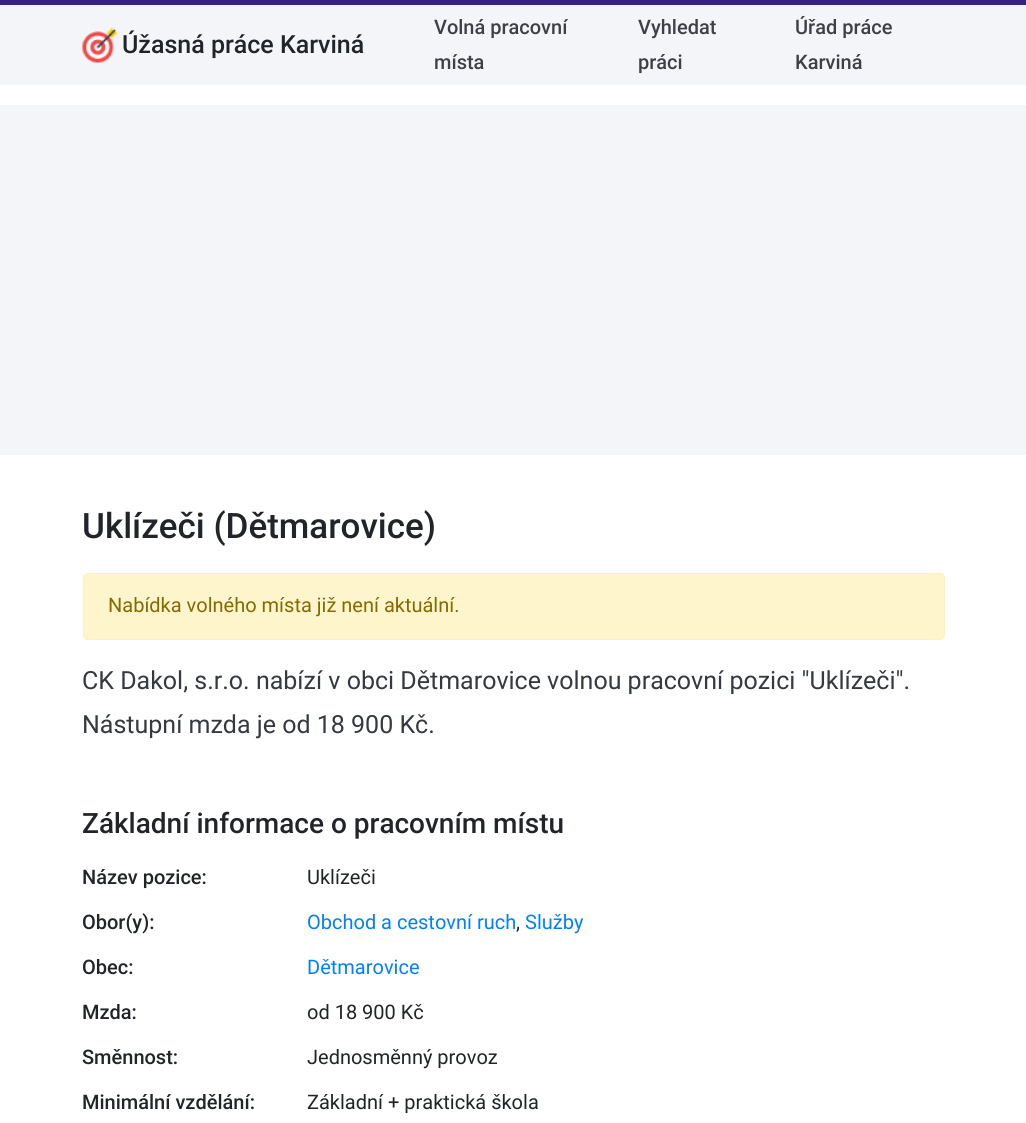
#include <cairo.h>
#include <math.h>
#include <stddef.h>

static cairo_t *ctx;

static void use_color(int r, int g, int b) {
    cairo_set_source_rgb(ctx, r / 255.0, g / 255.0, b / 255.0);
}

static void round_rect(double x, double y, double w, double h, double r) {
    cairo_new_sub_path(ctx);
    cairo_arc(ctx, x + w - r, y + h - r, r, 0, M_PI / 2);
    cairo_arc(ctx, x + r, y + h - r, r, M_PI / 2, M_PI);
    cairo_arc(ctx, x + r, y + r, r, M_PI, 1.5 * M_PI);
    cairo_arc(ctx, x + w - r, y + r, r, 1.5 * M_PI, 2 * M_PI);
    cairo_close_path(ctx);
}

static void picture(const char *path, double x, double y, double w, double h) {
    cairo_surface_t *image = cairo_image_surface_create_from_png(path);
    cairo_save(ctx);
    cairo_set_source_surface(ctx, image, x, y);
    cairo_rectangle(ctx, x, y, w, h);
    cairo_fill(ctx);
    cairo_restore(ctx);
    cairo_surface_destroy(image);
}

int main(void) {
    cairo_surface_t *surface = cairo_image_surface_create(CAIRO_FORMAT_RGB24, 1026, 1123);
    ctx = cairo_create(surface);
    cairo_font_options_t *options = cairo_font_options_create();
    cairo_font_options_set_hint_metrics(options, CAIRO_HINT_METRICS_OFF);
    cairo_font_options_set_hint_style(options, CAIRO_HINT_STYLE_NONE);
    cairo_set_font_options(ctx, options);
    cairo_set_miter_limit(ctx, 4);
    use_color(255, 255, 255);
    cairo_paint(ctx);
    use_color(56, 33, 131);
    cairo_rectangle(ctx, 0, 0, 1026, 5);
    cairo_fill(ctx);
    use_color(243, 245, 249);
    cairo_rectangle(ctx, 0, 5, 1026, 80);
    cairo_fill(ctx);
    picture("img1.png", 82, 27, 36, 36);
    cairo_select_font_face(ctx, "Roboto Medium", CAIRO_FONT_SLANT_NORMAL, CAIRO_FONT_WEIGHT_NORMAL);
    cairo_set_font_size(ctx, 25);
    use_color(33, 37, 41);
    cairo_move_to(ctx, 122, 53);
    cairo_show_text(ctx, "Úžasná práce Karviná");
    cairo_set_font_size(ctx, 20);
    use_color(63, 63, 70);
    cairo_move_to(ctx, 434, 34);
    cairo_show_text(ctx, "Volná pracovní");
    cairo_move_to(ctx, 434, 69);
    cairo_show_text(ctx, "místa");
    cairo_move_to(ctx, 638, 34);
    cairo_show_text(ctx, "Vyhledat");
    cairo_move_to(ctx, 638, 69);
    cairo_show_text(ctx, "práci");
    cairo_move_to(ctx, 795, 34);
    cairo_show_text(ctx, "Úřad práce");
    cairo_move_to(ctx, 795, 69);
    cairo_show_text(ctx, "Karviná");
    use_color(243, 245, 249);
    cairo_rectangle(ctx, 0, 105, 1026, 350);
    cairo_fill(ctx);
    cairo_set_font_size(ctx, 35);
    use_color(33, 37, 41);
    cairo_move_to(ctx, 82, 538);
    cairo_show_text(ctx, "Uklízeči (Dětmarovice)");
    use_color(255, 245, 204);
    round_rect(83.5, 573.5, 861, 66, 4.5);
    cairo_fill_preserve(ctx);
    use_color(255, 241, 184);
    cairo_set_line_width(ctx, 1);
    cairo_stroke(ctx);
    cairo_select_font_face(ctx, "Roboto", CAIRO_FONT_SLANT_NORMAL, CAIRO_FONT_WEIGHT_NORMAL);
    cairo_set_font_size(ctx, 20);
    use_color(133, 106, 0);
    cairo_move_to(ctx, 108, 612);
    cairo_show_text(ctx, "Nabídka volného místa již není aktuální.");
    cairo_set_font_size(ctx, 25);
    use_color(52, 58, 64);
    cairo_move_to(ctx, 82, 689);
    cairo_show_text(ctx, "CK Dakol, s.r.o. nabízí v obci Dětmarovice volnou pracovní pozici \"Uklízeči\".");
    cairo_move_to(ctx, 82, 733);
    cairo_show_text(ctx, "Nástupní mzda je od 18 900 Kč.");
    cairo_select_font_face(ctx, "Roboto Medium", CAIRO_FONT_SLANT_NORMAL, CAIRO_FONT_WEIGHT_NORMAL);
    cairo_set_font_size(ctx, 28);
    use_color(33, 37, 41);
    cairo_move_to(ctx, 82, 833);
    cairo_show_text(ctx, "Základní informace o pracovním místu");
    cairo_set_font_size(ctx, 20);
    cairo_move_to(ctx, 82, 884);
    cairo_show_text(ctx, "Název pozice:");
    cairo_select_font_face(ctx, "Roboto", CAIRO_FONT_SLANT_NORMAL, CAIRO_FONT_WEIGHT_NORMAL);
    cairo_move_to(ctx, 307, 884);
    cairo_show_text(ctx, "Uklízeči");
    cairo_select_font_face(ctx, "Roboto Medium", CAIRO_FONT_SLANT_NORMAL, CAIRO_FONT_WEIGHT_NORMAL);
    cairo_move_to(ctx, 82, 929);
    cairo_show_text(ctx, "Obor(y):");
    cairo_select_font_face(ctx, "Roboto", CAIRO_FONT_SLANT_NORMAL, CAIRO_FONT_WEIGHT_NORMAL);
    use_color(0, 128, 255);
    cairo_move_to(ctx, 307, 929);
    cairo_show_text(ctx, "Obchod a cestovní ruch");
    use_color(33, 37, 41);
    cairo_move_to(ctx, 516, 929);
    cairo_show_text(ctx, ",");
    use_color(0, 128, 255);
    cairo_move_to(ctx, 525, 929);
    cairo_show_text(ctx, "Služby");
    cairo_select_font_face(ctx, "Roboto Medium", CAIRO_FONT_SLANT_NORMAL, CAIRO_FONT_WEIGHT_NORMAL);
    use_color(33, 37, 41);
    cairo_move_to(ctx, 82, 974);
    cairo_show_text(ctx, "Obec:");
    cairo_select_font_face(ctx, "Roboto", CAIRO_FONT_SLANT_NORMAL, CAIRO_FONT_WEIGHT_NORMAL);
    use_color(0, 128, 255);
    cairo_move_to(ctx, 307, 974);
    cairo_show_text(ctx, "Dětmarovice");
    cairo_select_font_face(ctx, "Roboto Medium", CAIRO_FONT_SLANT_NORMAL, CAIRO_FONT_WEIGHT_NORMAL);
    use_color(33, 37, 41);
    cairo_move_to(ctx, 82, 1019);
    cairo_show_text(ctx, "Mzda:");
    cairo_select_font_face(ctx, "Roboto", CAIRO_FONT_SLANT_NORMAL, CAIRO_FONT_WEIGHT_NORMAL);
    cairo_move_to(ctx, 307, 1019);
    cairo_show_text(ctx, "od 18 900 Kč");
    cairo_select_font_face(ctx, "Roboto Medium", CAIRO_FONT_SLANT_NORMAL, CAIRO_FONT_WEIGHT_NORMAL);
    cairo_move_to(ctx, 82, 1064);
    cairo_show_text(ctx, "Směnnost:");
    cairo_select_font_face(ctx, "Roboto", CAIRO_FONT_SLANT_NORMAL, CAIRO_FONT_WEIGHT_NORMAL);
    cairo_move_to(ctx, 307, 1064);
    cairo_show_text(ctx, "Jednosměnný provoz");
    cairo_select_font_face(ctx, "Roboto Medium", CAIRO_FONT_SLANT_NORMAL, CAIRO_FONT_WEIGHT_NORMAL);
    cairo_move_to(ctx, 82, 1109);
    cairo_show_text(ctx, "Minimální vzdělání:");
    cairo_select_font_face(ctx, "Roboto", CAIRO_FONT_SLANT_NORMAL, CAIRO_FONT_WEIGHT_NORMAL);
    cairo_move_to(ctx, 307, 1109);
    cairo_show_text(ctx, "Základní + praktická škola");
    cairo_surface_write_to_png(surface, "result.png");
    cairo_font_options_destroy(options);
    cairo_destroy(ctx);
    cairo_surface_destroy(surface);
    return 0;
}
